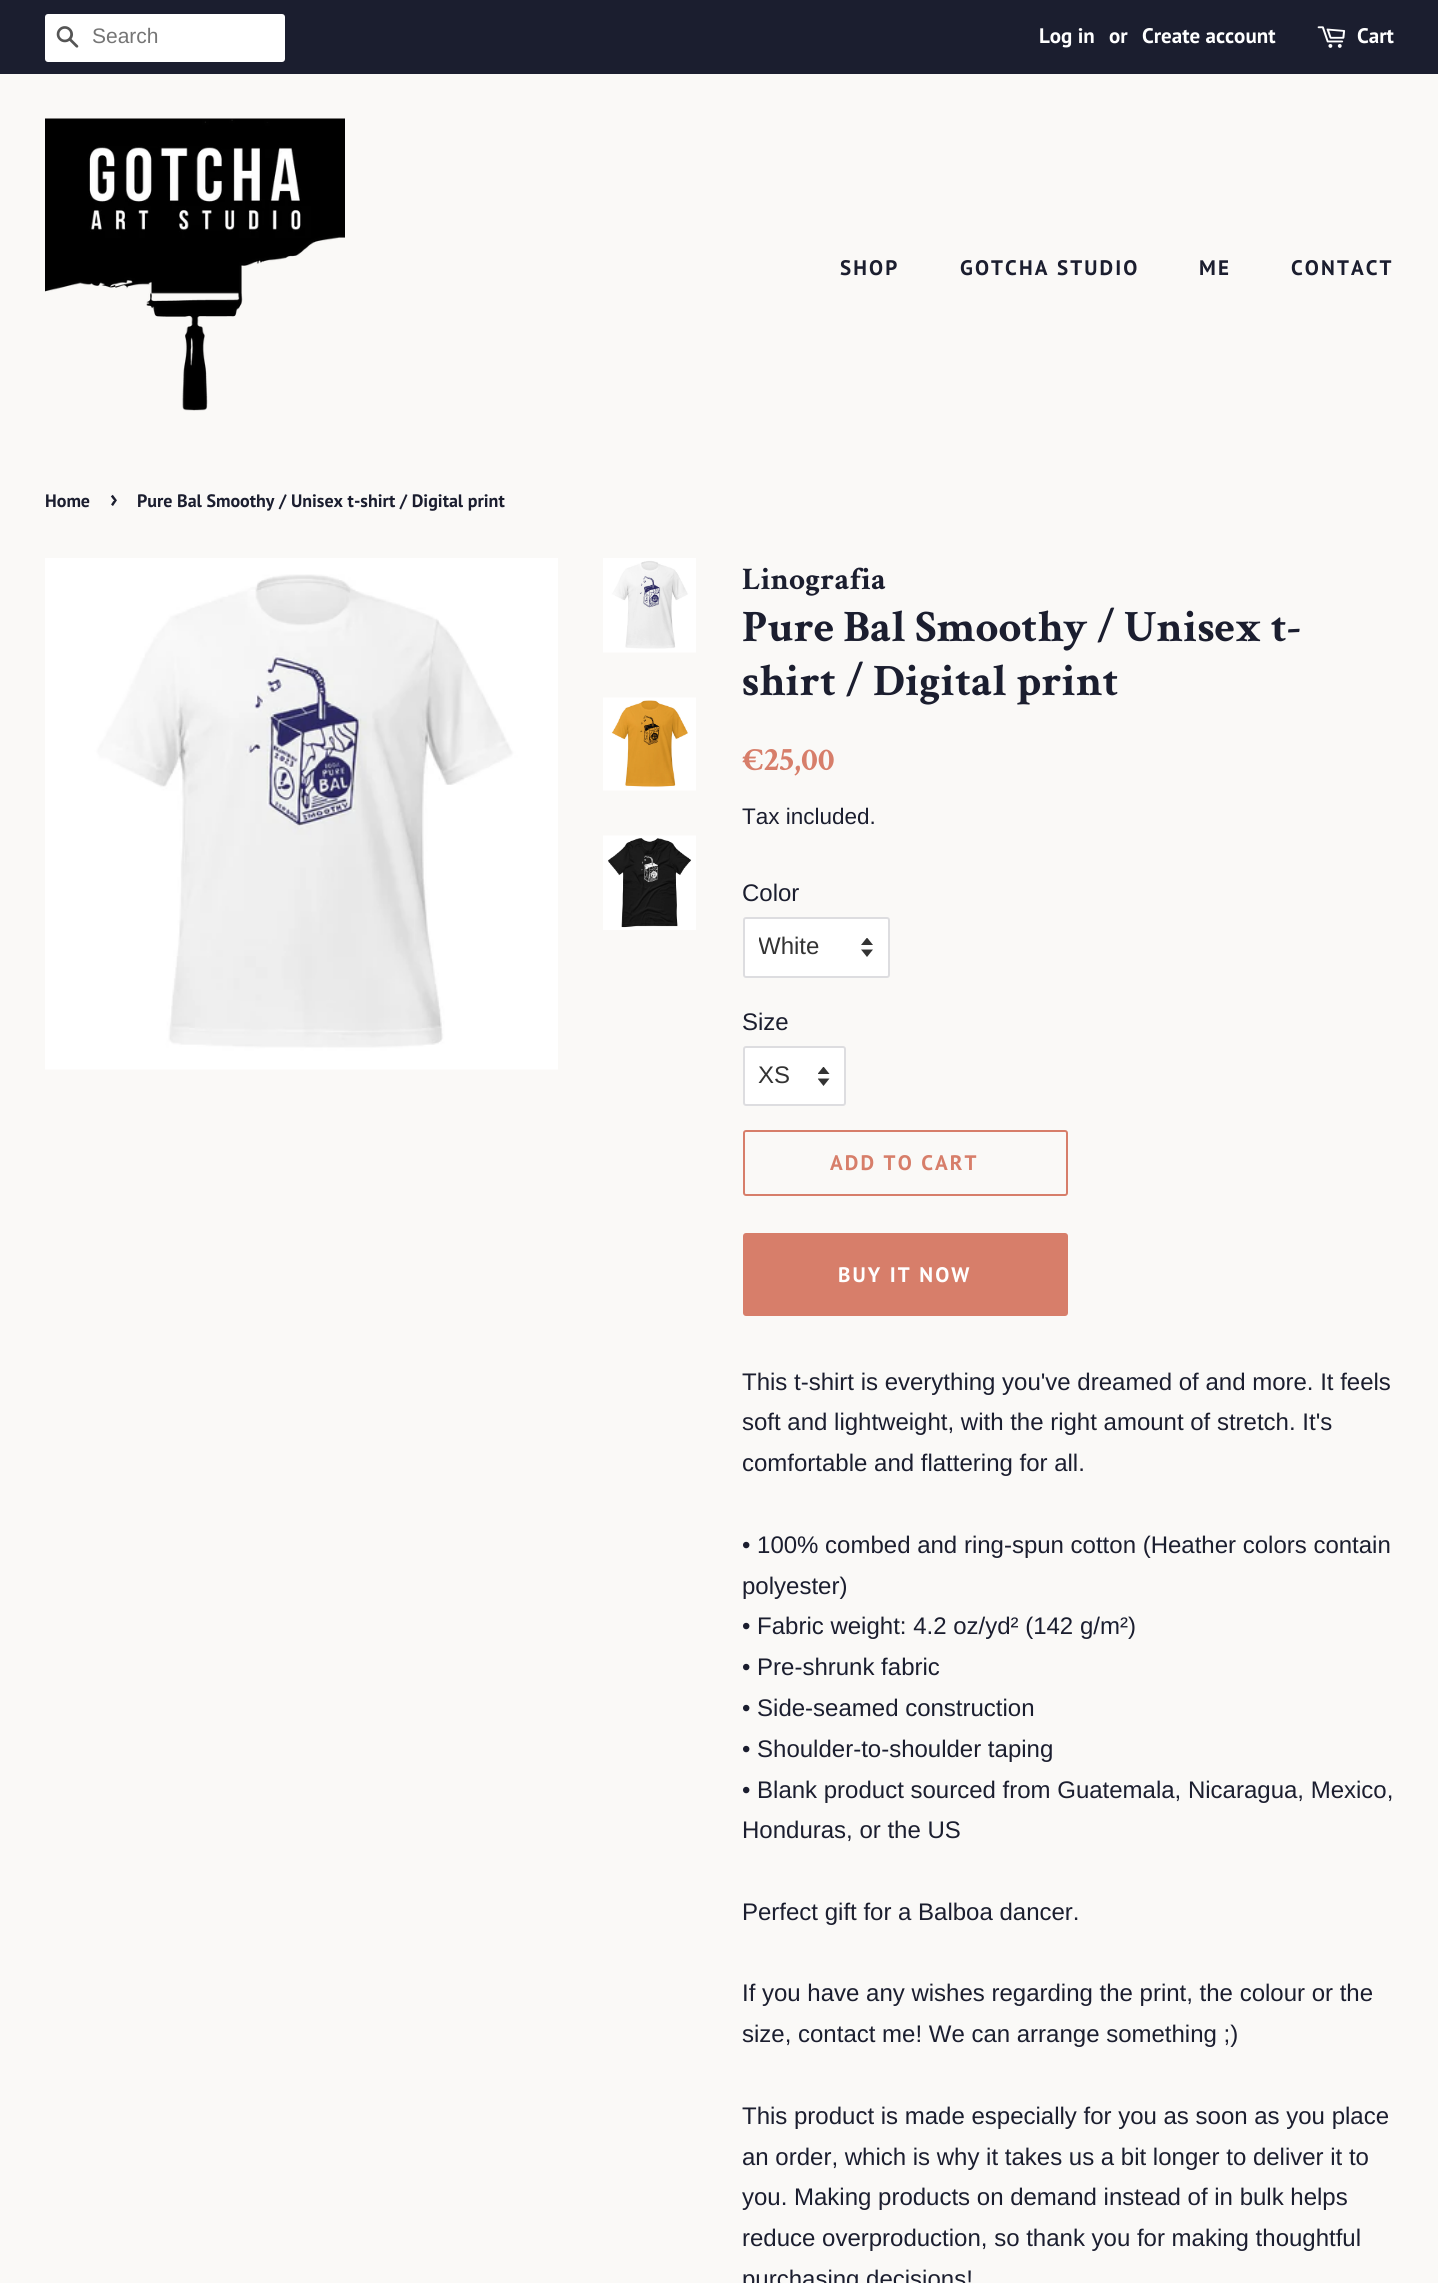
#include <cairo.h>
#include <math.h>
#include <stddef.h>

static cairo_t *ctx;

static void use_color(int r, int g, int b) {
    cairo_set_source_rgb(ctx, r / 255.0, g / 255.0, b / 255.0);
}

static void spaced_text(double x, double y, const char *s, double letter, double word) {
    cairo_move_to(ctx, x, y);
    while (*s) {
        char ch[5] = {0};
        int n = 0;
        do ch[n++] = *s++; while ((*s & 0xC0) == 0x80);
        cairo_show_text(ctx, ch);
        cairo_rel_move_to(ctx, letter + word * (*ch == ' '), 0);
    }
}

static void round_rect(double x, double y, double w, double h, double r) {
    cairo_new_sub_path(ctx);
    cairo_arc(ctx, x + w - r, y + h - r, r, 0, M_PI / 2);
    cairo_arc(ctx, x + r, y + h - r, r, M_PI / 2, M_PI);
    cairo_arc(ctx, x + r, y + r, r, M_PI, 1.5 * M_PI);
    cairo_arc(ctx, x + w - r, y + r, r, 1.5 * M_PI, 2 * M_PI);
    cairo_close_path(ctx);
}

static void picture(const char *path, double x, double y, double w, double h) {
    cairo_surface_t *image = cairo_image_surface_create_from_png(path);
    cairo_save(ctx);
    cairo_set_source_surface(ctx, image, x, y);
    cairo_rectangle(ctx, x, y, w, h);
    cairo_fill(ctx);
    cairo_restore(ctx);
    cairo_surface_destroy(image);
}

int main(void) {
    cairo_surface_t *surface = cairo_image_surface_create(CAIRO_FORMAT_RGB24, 1438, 2283);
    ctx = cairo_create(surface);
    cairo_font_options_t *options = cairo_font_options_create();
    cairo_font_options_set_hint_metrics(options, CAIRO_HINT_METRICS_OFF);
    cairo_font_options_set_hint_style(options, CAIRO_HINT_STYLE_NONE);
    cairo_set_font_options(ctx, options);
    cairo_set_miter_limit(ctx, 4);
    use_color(250, 249, 247);
    cairo_paint(ctx);
    use_color(27, 30, 47);
    cairo_rectangle(ctx, 0, 0, 1438, 74);
    cairo_fill(ctx);
    use_color(255, 255, 255);
    round_rect(45, 14, 240, 48, 3);
    cairo_fill(ctx);
    picture("img1.png", 56, 26, 23, 22);
    cairo_select_font_face(ctx, "Liberation Sans", CAIRO_FONT_SLANT_NORMAL, CAIRO_FONT_WEIGHT_NORMAL);
    cairo_set_font_size(ctx, 21);
    use_color(117, 117, 117);
    cairo_move_to(ctx, 92, 43);
    cairo_show_text(ctx, "Search");
    cairo_select_font_face(ctx, "PT Sans", CAIRO_FONT_SLANT_NORMAL, CAIRO_FONT_WEIGHT_BOLD);
    use_color(255, 255, 255);
    cairo_move_to(ctx, 1039, 43);
    cairo_show_text(ctx, "Log in");
    cairo_move_to(ctx, 1109, 43);
    cairo_show_text(ctx, "or");
    cairo_move_to(ctx, 1142, 43);
    cairo_show_text(ctx, "Create account");
    picture("img2.png", 1317, 26, 29, 22);
    cairo_move_to(ctx, 1357, 43);
    cairo_show_text(ctx, "Cart");
    picture("img3.png", 45, 118, 300, 293);
    use_color(27, 30, 47);
    spaced_text(840, 275, "SHOP", 2.1, 0);
    spaced_text(960, 275, "GOTCHA STUDIO", 2.1, 0);
    spaced_text(1199, 275, "ME", 2.1, 0);
    spaced_text(1291, 275, "CONTACT", 2.1, 0);
    cairo_set_font_size(ctx, 18);
    cairo_move_to(ctx, 45, 507);
    cairo_show_text(ctx, "Home");
    cairo_set_font_size(ctx, 25);
    cairo_move_to(ctx, 110, 507);
    cairo_show_text(ctx, "›");
    cairo_set_font_size(ctx, 18);
    cairo_move_to(ctx, 137, 507);
    cairo_show_text(ctx, "Pure Bal Smoothy / Unisex t-shirt / Digital print");
    picture("img4.png", 45, 558, 513, 512);
    picture("img5.png", 603, 558, 93, 95);
    picture("img6.png", 603, 697, 93, 94);
    picture("img7.png", 603, 835, 93, 95);
    cairo_select_font_face(ctx, "Crimson Text", CAIRO_FONT_SLANT_NORMAL, CAIRO_FONT_WEIGHT_BOLD);
    cairo_set_font_size(ctx, 31.5);
    cairo_move_to(ctx, 742, 589);
    cairo_show_text(ctx, "Linografia");
    cairo_set_font_size(ctx, 45);
    cairo_move_to(ctx, 742, 641);
    cairo_show_text(ctx, "Pure Bal Smoothy / Unisex t-");
    cairo_move_to(ctx, 742, 695);
    cairo_show_text(ctx, "shirt / Digital print");
    cairo_set_font_size(ctx, 33.5);
    use_color(215, 126, 106);
    cairo_move_to(ctx, 742, 770);
    cairo_show_text(ctx, "€25,00");
    cairo_select_font_face(ctx, "Liberation Sans", CAIRO_FONT_SLANT_NORMAL, CAIRO_FONT_WEIGHT_NORMAL);
    cairo_set_font_size(ctx, 22.5);
    use_color(27, 30, 47);
    cairo_move_to(ctx, 742, 824);
    cairo_show_text(ctx, "Tax included.");
    cairo_set_font_size(ctx, 24);
    cairo_move_to(ctx, 742, 901);
    cairo_show_text(ctx, "Color");
    use_color(255, 255, 255);
    round_rect(743, 917, 147, 61, 3);
    cairo_fill(ctx);
    picture("img8.png", 861, 938, 12, 19);
    round_rect(744, 918, 145, 59, 2);
    cairo_set_source_rgba(ctx, 0.106, 0.118, 0.184, 0.15);
    cairo_stroke(ctx);
    cairo_save(ctx);
    cairo_rectangle(ctx, 759, 930, 87, 35);
    cairo_clip(ctx);
    use_color(51, 51, 51);
    cairo_move_to(ctx, 758, 954);
    cairo_show_text(ctx, "White");
    cairo_restore(ctx);
    use_color(27, 30, 47);
    cairo_move_to(ctx, 742, 1030);
    cairo_show_text(ctx, "Size");
    use_color(255, 255, 255);
    round_rect(743, 1046, 103, 60, 3);
    cairo_fill(ctx);
    picture("img9.png", 818, 1067, 12, 19);
    round_rect(744, 1047, 101, 58, 2);
    cairo_set_source_rgba(ctx, 0.106, 0.118, 0.184, 0.15);
    cairo_stroke(ctx);
    use_color(51, 51, 51);
    cairo_move_to(ctx, 758, 1083);
    cairo_show_text(ctx, "XS");
    round_rect(744, 1131, 323, 64, 2);
    use_color(215, 126, 106);
    cairo_stroke(ctx);
    cairo_select_font_face(ctx, "PT Sans", CAIRO_FONT_SLANT_NORMAL, CAIRO_FONT_WEIGHT_BOLD);
    cairo_set_font_size(ctx, 21);
    spaced_text(830, 1170, "ADD TO CART", 2.1, 0);
    round_rect(743, 1233, 325, 83, 3);
    cairo_fill(ctx);
    use_color(255, 255, 255);
    spaced_text(838, 1282, "BUY IT NOW", 2.1, 0);
    cairo_select_font_face(ctx, "Liberation Sans", CAIRO_FONT_SLANT_NORMAL, CAIRO_FONT_WEIGHT_NORMAL);
    cairo_set_font_size(ctx, 24);
    use_color(27, 30, 47);
    cairo_move_to(ctx, 742, 1390);
    cairo_show_text(ctx, "This t-shirt is everything you've dreamed of and more. It feels");
    cairo_move_to(ctx, 742, 1430);
    cairo_show_text(ctx, "soft and lightweight, with the right amount of stretch. It's");
    cairo_move_to(ctx, 742, 1471);
    cairo_show_text(ctx, "comfortable and flattering for all.");
    cairo_move_to(ctx, 742, 1553);
    cairo_show_text(ctx, "• 100% combed and ring-spun cotton (Heather colors contain");
    cairo_move_to(ctx, 742, 1594);
    cairo_show_text(ctx, "polyester)");
    cairo_move_to(ctx, 742, 1634);
    cairo_show_text(ctx, "• Fabric weight: 4.2 oz/yd² (142 g/m²)");
    cairo_move_to(ctx, 742, 1675);
    cairo_show_text(ctx, "• Pre-shrunk fabric");
    cairo_move_to(ctx, 742, 1716);
    cairo_show_text(ctx, "• Side-seamed construction");
    cairo_move_to(ctx, 742, 1757);
    cairo_show_text(ctx, "• Shoulder-to-shoulder taping");
    cairo_move_to(ctx, 742, 1798);
    cairo_show_text(ctx, "• Blank product sourced from Guatemala, Nicaragua, Mexico,");
    cairo_move_to(ctx, 742, 1838);
    cairo_show_text(ctx, "Honduras, or the US");
    cairo_move_to(ctx, 742, 1920);
    cairo_show_text(ctx, "Perfect gift for a Balboa dancer.");
    cairo_move_to(ctx, 742, 2001);
    cairo_show_text(ctx, "If you have any wishes regarding the print, the colour or the");
    cairo_move_to(ctx, 742, 2042);
    cairo_show_text(ctx, "size, contact me! We can arrange something ;)");
    cairo_move_to(ctx, 742, 2124);
    cairo_show_text(ctx, "This product is made especially for you as soon as you place");
    cairo_move_to(ctx, 742, 2165);
    cairo_show_text(ctx, "an order, which is why it takes us a bit longer to deliver it to");
    cairo_move_to(ctx, 742, 2205);
    cairo_show_text(ctx, "you. Making products on demand instead of in bulk helps");
    cairo_move_to(ctx, 742, 2246);
    cairo_show_text(ctx, "reduce overproduction, so thank you for making thoughtful");
    cairo_move_to(ctx, 742, 2287);
    cairo_show_text(ctx, "purchasing decisions!");
    cairo_surface_write_to_png(surface, "result.png");
    cairo_font_options_destroy(options);
    cairo_destroy(ctx);
    cairo_surface_destroy(surface);
    return 0;
}
